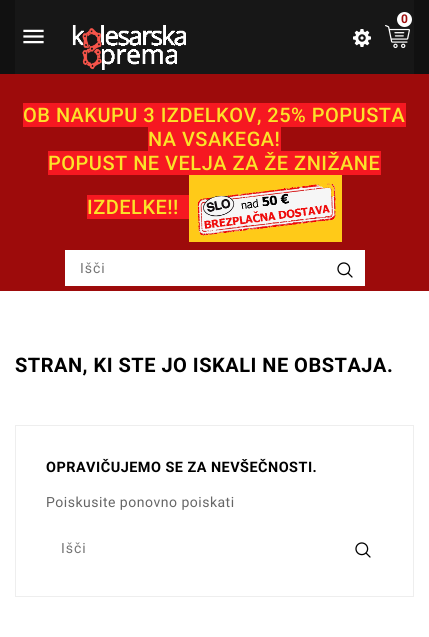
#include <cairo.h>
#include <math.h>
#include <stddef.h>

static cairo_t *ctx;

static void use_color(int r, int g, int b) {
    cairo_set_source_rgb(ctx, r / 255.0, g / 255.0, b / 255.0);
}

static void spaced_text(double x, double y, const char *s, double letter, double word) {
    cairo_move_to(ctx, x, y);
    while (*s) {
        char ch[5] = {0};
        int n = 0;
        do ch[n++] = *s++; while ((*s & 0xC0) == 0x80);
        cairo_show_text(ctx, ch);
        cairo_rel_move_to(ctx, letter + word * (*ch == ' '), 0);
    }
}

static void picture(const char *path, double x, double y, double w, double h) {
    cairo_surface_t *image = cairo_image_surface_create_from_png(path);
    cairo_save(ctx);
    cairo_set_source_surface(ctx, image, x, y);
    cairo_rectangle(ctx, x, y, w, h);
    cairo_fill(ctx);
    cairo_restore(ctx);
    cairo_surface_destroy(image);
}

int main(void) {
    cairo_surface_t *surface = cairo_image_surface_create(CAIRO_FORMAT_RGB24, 429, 637);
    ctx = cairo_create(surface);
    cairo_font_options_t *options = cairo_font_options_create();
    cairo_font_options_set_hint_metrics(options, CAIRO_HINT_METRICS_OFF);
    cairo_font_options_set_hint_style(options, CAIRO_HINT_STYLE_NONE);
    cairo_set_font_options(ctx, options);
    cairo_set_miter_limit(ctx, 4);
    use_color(255, 255, 255);
    cairo_paint(ctx);
    use_color(17, 17, 17);
    cairo_rectangle(ctx, 0, 0, 429, 74);
    cairo_fill(ctx);
    use_color(23, 23, 23);
    cairo_rectangle(ctx, 15, 0, 399, 74);
    cairo_fill(ctx);
    picture("img1.png", 385, 25, 25, 24);
    use_color(255, 255, 255);
    cairo_arc(ctx, 404.5, 19.5, 7.5, 0, 2 * M_PI);
    cairo_fill(ctx);
    cairo_select_font_face(ctx, "Roboto", CAIRO_FONT_SLANT_NORMAL, CAIRO_FONT_WEIGHT_BOLD);
    cairo_set_font_size(ctx, 12);
    use_color(157, 11, 11);
    spaced_text(401, 23, "0", 0.5, 0);
    picture("img2.png", 23, 29, 21, 15);
    picture("img3.png", 72, 25, 114, 45);
    picture("img4.png", 353, 29, 18, 18);
    cairo_rectangle(ctx, 0, 74, 429, 217);
    cairo_fill(ctx);
    use_color(246, 24, 33);
    cairo_rectangle(ctx, 23, 103, 383, 24);
    cairo_fill(ctx);
    cairo_select_font_face(ctx, "Roboto Medium", CAIRO_FONT_SLANT_NORMAL, CAIRO_FONT_WEIGHT_NORMAL);
    cairo_set_font_size(ctx, 20);
    use_color(251, 227, 41);
    spaced_text(23, 122, "OB NAKUPU 3 IZDELKOV, 25% POPUSTA", 0.5, 0);
    use_color(246, 24, 33);
    cairo_rectangle(ctx, 148, 127, 133, 24);
    cairo_fill(ctx);
    use_color(251, 227, 41);
    spaced_text(148, 146, "NA VSAKEGA!", 0.5, 0);
    use_color(246, 24, 33);
    cairo_rectangle(ctx, 48, 151, 333, 24);
    cairo_fill(ctx);
    use_color(251, 227, 41);
    spaced_text(48, 170, "POPUST NE VELJA ZA ŽE ZNIŽANE", 0.5, 0);
    use_color(246, 24, 33);
    cairo_rectangle(ctx, 87, 195, 102, 24);
    cairo_fill(ctx);
    use_color(251, 227, 41);
    spaced_text(87, 214, "IZDELKE!!", 0.5, 0);
    picture("img5.png", 189, 175, 153, 67);
    use_color(255, 255, 255);
    cairo_rectangle(ctx, 65, 250, 300, 36);
    cairo_fill(ctx);
    cairo_select_font_face(ctx, "Roboto", CAIRO_FONT_SLANT_NORMAL, CAIRO_FONT_WEIGHT_NORMAL);
    cairo_set_font_size(ctx, 14);
    use_color(117, 117, 117);
    spaced_text(80, 273, "Išči", 1, 0);
    picture("img6.png", 337, 262, 16, 16);
    cairo_select_font_face(ctx, "Roboto", CAIRO_FONT_SLANT_NORMAL, CAIRO_FONT_WEIGHT_BOLD);
    cairo_set_font_size(ctx, 20);
    use_color(0, 0, 0);
    spaced_text(15, 372, "STRAN, KI STE JO ISKALI NE OBSTAJA.", 0.5, 0);
    cairo_rectangle(ctx, 15.5, 425.5, 398, 171);
    use_color(238, 238, 238);
    cairo_set_line_width(ctx, 1);
    cairo_stroke(ctx);
    cairo_set_font_size(ctx, 14.4);
    use_color(0, 0, 0);
    spaced_text(46, 472, "OPRAVIČUJEMO SE ZA NEVŠEČNOSTI.", 0.5, 0);
    cairo_select_font_face(ctx, "Roboto", CAIRO_FONT_SLANT_NORMAL, CAIRO_FONT_WEIGHT_NORMAL);
    cairo_set_font_size(ctx, 14);
    use_color(102, 102, 102);
    spaced_text(46, 507, "Poiskusite ponovno poiskati", 0.5, 0);
    use_color(117, 117, 117);
    spaced_text(61, 553, "Išči", 1, 0);
    picture("img6.png", 355, 542, 16, 16);
    cairo_surface_write_to_png(surface, "result.png");
    cairo_font_options_destroy(options);
    cairo_destroy(ctx);
    cairo_surface_destroy(surface);
    return 0;
}
